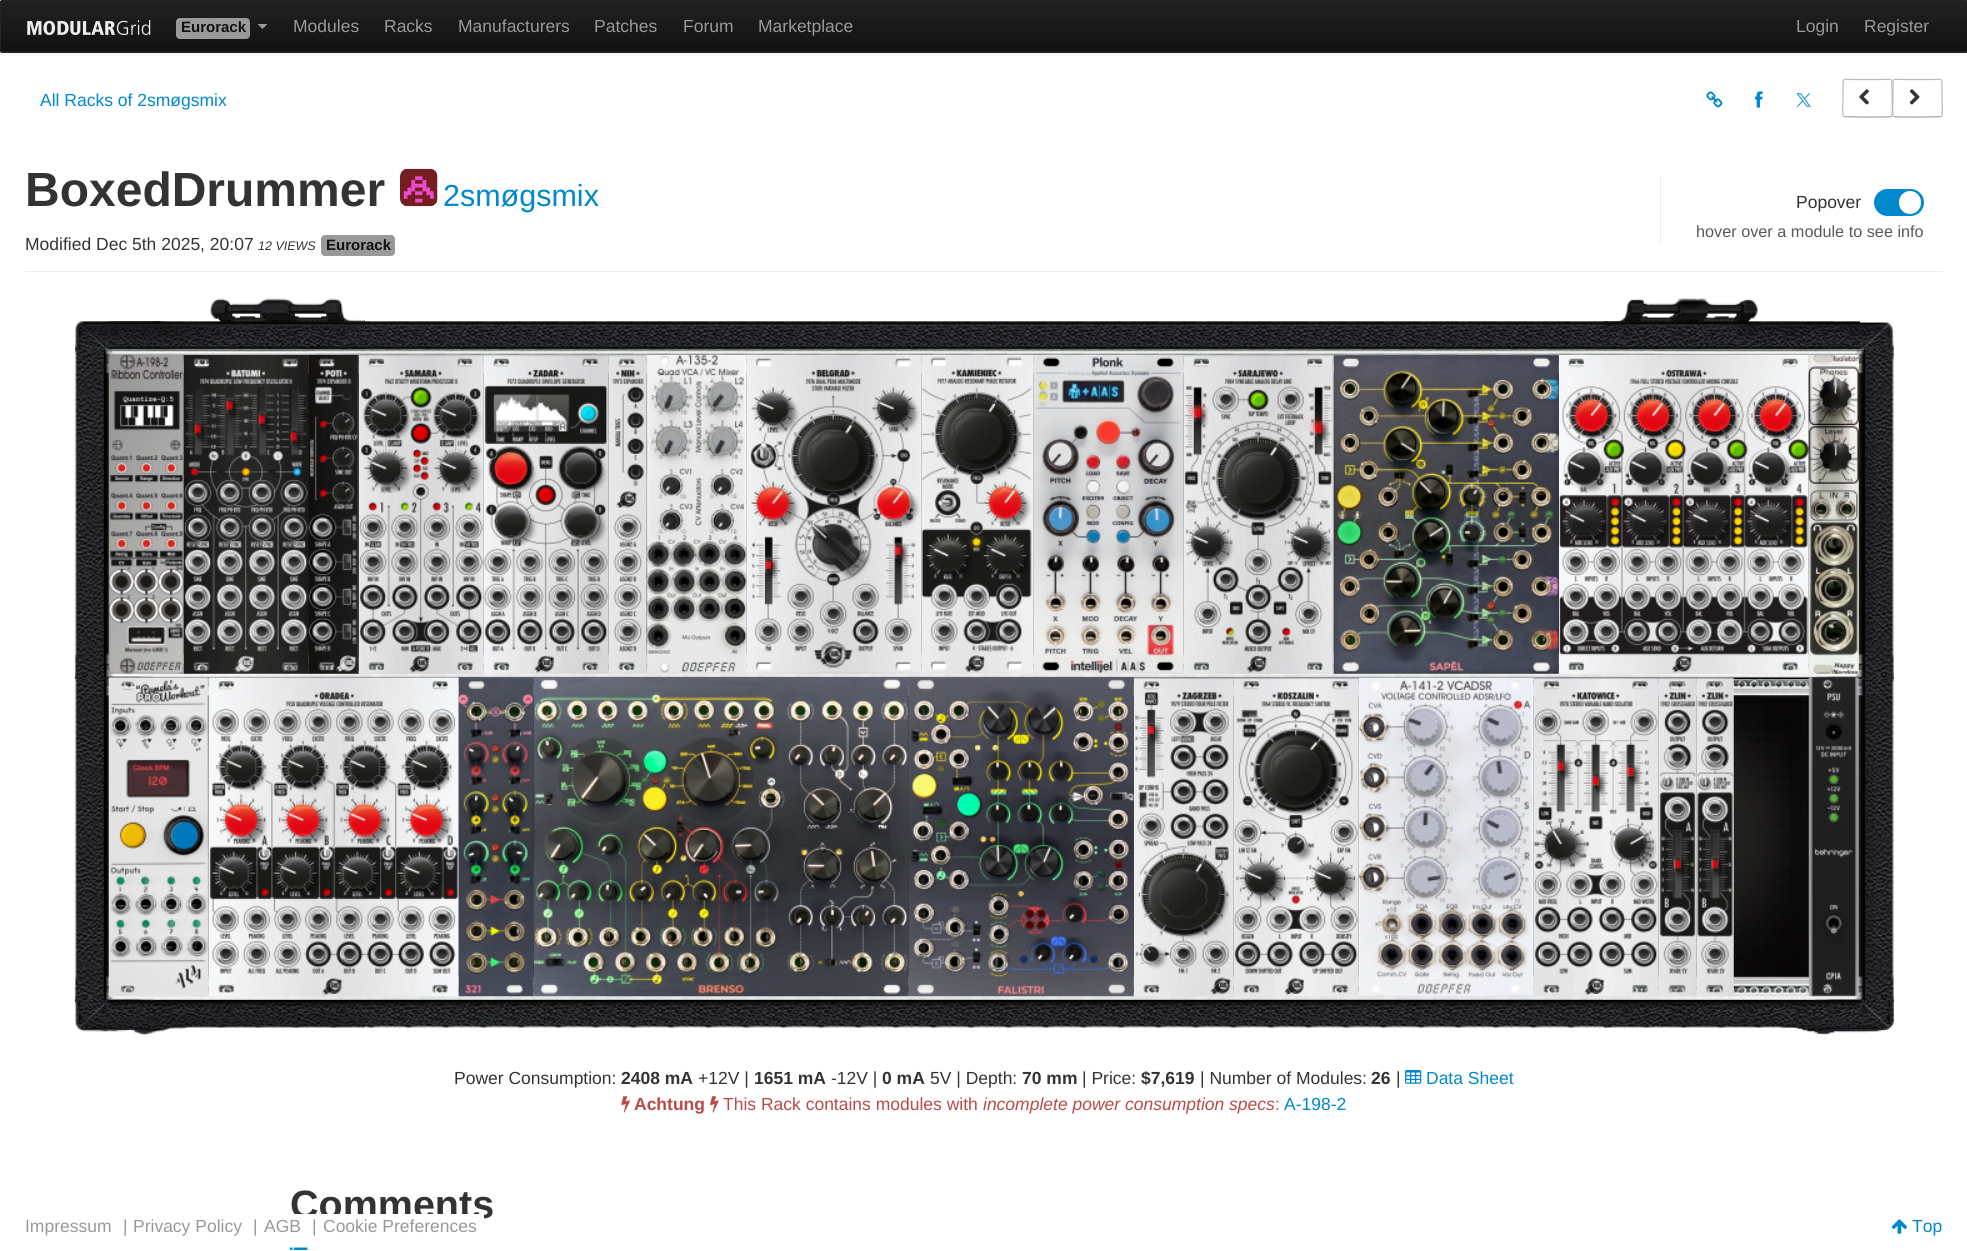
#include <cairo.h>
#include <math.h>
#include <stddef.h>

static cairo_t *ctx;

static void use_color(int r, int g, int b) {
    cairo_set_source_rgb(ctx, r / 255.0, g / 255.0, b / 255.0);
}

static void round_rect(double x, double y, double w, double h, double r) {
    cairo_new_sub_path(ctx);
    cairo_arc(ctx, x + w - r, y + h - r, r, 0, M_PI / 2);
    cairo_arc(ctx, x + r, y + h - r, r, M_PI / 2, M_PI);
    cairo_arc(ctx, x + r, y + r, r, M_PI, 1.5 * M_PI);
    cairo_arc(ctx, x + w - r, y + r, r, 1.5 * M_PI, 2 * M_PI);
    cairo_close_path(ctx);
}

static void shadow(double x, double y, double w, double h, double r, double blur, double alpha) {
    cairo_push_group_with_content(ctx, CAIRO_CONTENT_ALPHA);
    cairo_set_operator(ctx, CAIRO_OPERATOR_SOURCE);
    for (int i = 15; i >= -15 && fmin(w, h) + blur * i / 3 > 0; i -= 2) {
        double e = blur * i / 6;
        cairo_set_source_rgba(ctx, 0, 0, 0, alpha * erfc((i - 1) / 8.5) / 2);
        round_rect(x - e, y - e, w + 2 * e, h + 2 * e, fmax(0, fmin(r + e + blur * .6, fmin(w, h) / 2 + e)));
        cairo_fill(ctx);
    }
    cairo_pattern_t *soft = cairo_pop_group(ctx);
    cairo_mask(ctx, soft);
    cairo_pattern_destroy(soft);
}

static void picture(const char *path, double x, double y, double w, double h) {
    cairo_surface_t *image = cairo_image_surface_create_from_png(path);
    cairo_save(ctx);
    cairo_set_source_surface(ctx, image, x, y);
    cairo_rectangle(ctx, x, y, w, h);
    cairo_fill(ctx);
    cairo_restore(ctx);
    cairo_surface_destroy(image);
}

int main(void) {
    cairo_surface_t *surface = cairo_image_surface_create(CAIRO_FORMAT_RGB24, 1967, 1251);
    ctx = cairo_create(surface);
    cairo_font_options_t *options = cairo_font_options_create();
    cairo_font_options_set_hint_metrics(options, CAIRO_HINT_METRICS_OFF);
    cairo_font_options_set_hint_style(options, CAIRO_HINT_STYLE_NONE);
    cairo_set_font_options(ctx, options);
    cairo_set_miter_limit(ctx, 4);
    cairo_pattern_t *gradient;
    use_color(255, 255, 255);
    cairo_paint(ctx);
    use_color(0, 0, 0);
    shadow(0, 1, 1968, 53, 2.5, 2.5, 0.07);
    use_color(27, 27, 27);
    round_rect(0, 0, 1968, 53, 2.5);
    cairo_fill(ctx);
    gradient = cairo_pattern_create_linear(984, 1.2, 984, 51);
    cairo_pattern_add_color_stop_rgba(gradient, 0, 0.133, 0.133, 0.133, 1);
    cairo_pattern_add_color_stop_rgba(gradient, 1, 0.067, 0.067, 0.067, 1);
    cairo_set_source(ctx, gradient);
    cairo_pattern_destroy(gradient);
    cairo_rectangle(ctx, 0, 1, 1967, 50);
    cairo_fill(ctx);
    round_rect(0.5, 0.5, 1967, 52, 2);
    use_color(37, 37, 37);
    cairo_set_line_width(ctx, 1);
    cairo_stroke(ctx);
    picture("img1.png", 27, 20, 124, 15);
    use_color(153, 153, 153);
    round_rect(176, 18, 74, 21, 4);
    cairo_fill(ctx);
    cairo_select_font_face(ctx, "Liberation Sans", CAIRO_FONT_SLANT_NORMAL, CAIRO_FONT_WEIGHT_BOLD);
    cairo_set_font_size(ctx, 15);
    use_color(17, 17, 17);
    cairo_move_to(ctx, 181, 32);
    cairo_show_text(ctx, "Eurorack");
    use_color(153, 153, 153);
    cairo_new_path(ctx);
    cairo_move_to(ctx, 257.5, 24);
    cairo_line_to(ctx, 267.5, 24);
    cairo_line_to(ctx, 262.5, 29);
    cairo_close_path(ctx);
    cairo_fill(ctx);
    cairo_select_font_face(ctx, "Liberation Sans", CAIRO_FONT_SLANT_NORMAL, CAIRO_FONT_WEIGHT_NORMAL);
    cairo_set_font_size(ctx, 17.5);
    cairo_move_to(ctx, 293, 32);
    cairo_show_text(ctx, "Modules");
    cairo_move_to(ctx, 384, 32);
    cairo_show_text(ctx, "Racks");
    cairo_move_to(ctx, 458, 32);
    cairo_show_text(ctx, "Manufacturers");
    cairo_move_to(ctx, 594, 32);
    cairo_show_text(ctx, "Patches");
    cairo_move_to(ctx, 683, 32);
    cairo_show_text(ctx, "Forum");
    cairo_move_to(ctx, 758, 32);
    cairo_show_text(ctx, "Marketplace");
    cairo_move_to(ctx, 1796, 32);
    cairo_show_text(ctx, "Login");
    cairo_move_to(ctx, 1864, 32);
    cairo_show_text(ctx, "Register");
    use_color(0, 136, 204);
    cairo_move_to(ctx, 40, 106);
    cairo_show_text(ctx, "All Racks of 2smøgsmix");
    picture("img2.png", 1706, 91, 17, 17);
    picture("img3.png", 1755, 91, 8, 17);
    picture("img4.png", 1796, 93, 15, 14);
    cairo_new_path(ctx);
    cairo_move_to(ctx, 1891.5, 116.5);
    cairo_line_to(ctx, 1891, 116.5);
    cairo_curve_to(ctx, 1890, 117.5, 1844.5, 117, 1843.5, 116.5);
    use_color(162, 162, 162);
    cairo_set_line_width(ctx, 1.2);
    cairo_stroke(ctx);
    cairo_new_path(ctx);
    cairo_move_to(ctx, 1843.5, 116.5);
    cairo_curve_to(ctx, 1842, 115, 1843, 101, 1843, 98);
    cairo_line_to(ctx, 1843, 87);
    cairo_curve_to(ctx, 1843, 77.5, 1842.5, 79.5, 1852.5, 79.5);
    cairo_line_to(ctx, 1882.5, 79.5);
    cairo_curve_to(ctx, 1892.5, 79.5, 1892, 77.5, 1892, 87);
    cairo_line_to(ctx, 1892, 98);
    cairo_curve_to(ctx, 1892, 101, 1893, 115, 1891.5, 116.5);
    use_color(187, 187, 187);
    cairo_stroke(ctx);
    picture("img5.png", 1859, 89, 10, 16);
    cairo_new_path(ctx);
    cairo_move_to(ctx, 1941.5, 116.5);
    cairo_curve_to(ctx, 1940.5, 117, 1895, 117.5, 1894, 116.5);
    cairo_line_to(ctx, 1893.5, 116.5);
    use_color(162, 162, 162);
    cairo_stroke(ctx);
    cairo_new_path(ctx);
    cairo_move_to(ctx, 1893.5, 116.5);
    cairo_curve_to(ctx, 1892, 115, 1893, 101, 1893, 98);
    cairo_line_to(ctx, 1893, 87);
    cairo_curve_to(ctx, 1893, 77.5, 1892.5, 79.5, 1902.5, 79.5);
    cairo_line_to(ctx, 1932.5, 79.5);
    cairo_curve_to(ctx, 1942.5, 79.5, 1942, 77.5, 1942, 87);
    cairo_line_to(ctx, 1942, 98);
    cairo_curve_to(ctx, 1942, 101, 1943, 115, 1941.5, 116.5);
    use_color(187, 187, 187);
    cairo_stroke(ctx);
    picture("img6.png", 1909, 89, 11, 16);
    use_color(238, 238, 238);
    cairo_rectangle(ctx, 25, 271, 1918, 1);
    cairo_fill(ctx);
    cairo_select_font_face(ctx, "Liberation Sans", CAIRO_FONT_SLANT_NORMAL, CAIRO_FONT_WEIGHT_BOLD);
    cairo_set_font_size(ctx, 48);
    use_color(51, 51, 51);
    cairo_move_to(ctx, 25, 206);
    cairo_show_text(ctx, "BoxedDrummer");
    picture("img7.png", 400, 168, 38, 39);
    cairo_select_font_face(ctx, "Liberation Sans", CAIRO_FONT_SLANT_NORMAL, CAIRO_FONT_WEIGHT_NORMAL);
    cairo_set_font_size(ctx, 30.5);
    use_color(0, 136, 204);
    cairo_move_to(ctx, 443, 206);
    cairo_show_text(ctx, "2smøgsmix");
    cairo_set_font_size(ctx, 17.5);
    use_color(51, 51, 51);
    cairo_move_to(ctx, 25, 250);
    cairo_show_text(ctx, "Modified Dec 5th 2025, 20:07");
    cairo_select_font_face(ctx, "Liberation Sans", CAIRO_FONT_SLANT_ITALIC, CAIRO_FONT_WEIGHT_NORMAL);
    cairo_set_font_size(ctx, 12.5);
    cairo_move_to(ctx, 258, 250);
    cairo_show_text(ctx, "12 VIEWS");
    use_color(153, 153, 153);
    round_rect(321, 235, 74, 21, 4);
    cairo_fill(ctx);
    cairo_select_font_face(ctx, "Liberation Sans", CAIRO_FONT_SLANT_NORMAL, CAIRO_FONT_WEIGHT_BOLD);
    cairo_set_font_size(ctx, 15);
    use_color(17, 17, 17);
    cairo_move_to(ctx, 326, 250);
    cairo_show_text(ctx, "Eurorack");
    use_color(238, 238, 238);
    cairo_rectangle(ctx, 1660, 176, 1, 67);
    cairo_fill(ctx);
    cairo_select_font_face(ctx, "Liberation Sans", CAIRO_FONT_SLANT_NORMAL, CAIRO_FONT_WEIGHT_NORMAL);
    cairo_set_font_size(ctx, 17.5);
    use_color(51, 51, 51);
    cairo_move_to(ctx, 1796, 208);
    cairo_show_text(ctx, "Popover");
    use_color(0, 136, 204);
    round_rect(1874, 189, 50, 27, 13.5);
    cairo_fill(ctx);
    use_color(255, 255, 255);
    round_rect(1899, 191, 22, 23, 11);
    cairo_fill(ctx);
    cairo_set_font_size(ctx, 16.25);
    use_color(89, 89, 89);
    cairo_move_to(ctx, 1696, 237);
    cairo_show_text(ctx, "hover over a module to see info");
    picture("img10.png", 108, 321, 1752, 34);
    picture("img8.png", 74, 298, 291, 57);
    picture("img9.png", 1603, 298, 291, 57);
    picture("img14.png", 74, 677, 291, 325);
    picture("img15.png", 365, 678, 1239, 322);
    picture("img16.png", 1603, 677, 291, 325);
    picture("img12.png", 108, 355, 1752, 324);
    picture("img11.png", 74, 355, 291, 324);
    picture("img13.png", 1603, 355, 291, 324);
    picture("img18.png", 183, 355, 126, 319);
    picture("img17.png", 108, 355, 76, 319);
    picture("img20.png", 358, 355, 126, 319);
    picture("img19.png", 308, 355, 51, 319);
    picture("img22.png", 608, 355, 39, 319);
    picture("img21.png", 483, 355, 126, 319);
    picture("img25.png", 921, 355, 113, 319);
    picture("img24.png", 746, 355, 176, 319);
    picture("img23.png", 646, 355, 101, 319);
    picture("img26.png", 1033, 355, 151, 319);
    picture("img29.png", 1558, 355, 251, 319);
    picture("img28.png", 1333, 355, 226, 319);
    picture("img27.png", 1183, 355, 151, 319);
    picture("img30.png", 1808, 355, 51, 319);
    picture("img31.png", 108, 677, 101, 320);
    picture("img32.png", 208, 677, 251, 320);
    picture("img34.png", 533, 677, 376, 320);
    picture("img33.png", 458, 677, 76, 320);
    picture("img36.png", 1133, 677, 101, 319);
    picture("img35.png", 908, 677, 226, 320);
    picture("img37.png", 1233, 677, 126, 320);
    picture("img38.png", 1358, 677, 176, 320);
    picture("img39.png", 1533, 677, 126, 320);
    picture("img41.png", 1696, 677, 38, 320);
    picture("img40.png", 1658, 677, 39, 320);
    picture("img42.png", 1808, 677, 51, 320);
    picture("img44.png", 167, 1000, 1632, 28);
    picture("img43.png", 74, 1000, 291, 36);
    picture("img45.png", 1603, 1000, 291, 35);
    cairo_set_font_size(ctx, 17.5);
    use_color(51, 51, 51);
    cairo_move_to(ctx, 454, 1084);
    cairo_show_text(ctx, "Power Consumption:");
    cairo_select_font_face(ctx, "Liberation Sans", CAIRO_FONT_SLANT_NORMAL, CAIRO_FONT_WEIGHT_BOLD);
    cairo_move_to(ctx, 621, 1084);
    cairo_show_text(ctx, "2408 mA");
    cairo_select_font_face(ctx, "Liberation Sans", CAIRO_FONT_SLANT_NORMAL, CAIRO_FONT_WEIGHT_NORMAL);
    cairo_move_to(ctx, 698, 1084);
    cairo_show_text(ctx, "+12V |");
    cairo_select_font_face(ctx, "Liberation Sans", CAIRO_FONT_SLANT_NORMAL, CAIRO_FONT_WEIGHT_BOLD);
    cairo_move_to(ctx, 754, 1084);
    cairo_show_text(ctx, "1651 mA");
    cairo_select_font_face(ctx, "Liberation Sans", CAIRO_FONT_SLANT_NORMAL, CAIRO_FONT_WEIGHT_NORMAL);
    cairo_move_to(ctx, 831, 1084);
    cairo_show_text(ctx, "-12V |");
    cairo_select_font_face(ctx, "Liberation Sans", CAIRO_FONT_SLANT_NORMAL, CAIRO_FONT_WEIGHT_BOLD);
    cairo_move_to(ctx, 882, 1084);
    cairo_show_text(ctx, "0 mA");
    cairo_select_font_face(ctx, "Liberation Sans", CAIRO_FONT_SLANT_NORMAL, CAIRO_FONT_WEIGHT_NORMAL);
    cairo_move_to(ctx, 930, 1084);
    cairo_show_text(ctx, "5V | Depth:");
    cairo_select_font_face(ctx, "Liberation Sans", CAIRO_FONT_SLANT_NORMAL, CAIRO_FONT_WEIGHT_BOLD);
    cairo_move_to(ctx, 1022, 1084);
    cairo_show_text(ctx, "70 mm");
    cairo_select_font_face(ctx, "Liberation Sans", CAIRO_FONT_SLANT_NORMAL, CAIRO_FONT_WEIGHT_NORMAL);
    cairo_move_to(ctx, 1082, 1084);
    cairo_show_text(ctx, "| Price:");
    cairo_select_font_face(ctx, "Liberation Sans", CAIRO_FONT_SLANT_NORMAL, CAIRO_FONT_WEIGHT_BOLD);
    cairo_move_to(ctx, 1141, 1084);
    cairo_show_text(ctx, "$7,619");
    cairo_select_font_face(ctx, "Liberation Sans", CAIRO_FONT_SLANT_NORMAL, CAIRO_FONT_WEIGHT_NORMAL);
    cairo_move_to(ctx, 1200, 1084);
    cairo_show_text(ctx, "| Number of Modules:");
    cairo_select_font_face(ctx, "Liberation Sans", CAIRO_FONT_SLANT_NORMAL, CAIRO_FONT_WEIGHT_BOLD);
    cairo_move_to(ctx, 1371, 1084);
    cairo_show_text(ctx, "26");
    cairo_select_font_face(ctx, "Liberation Sans", CAIRO_FONT_SLANT_NORMAL, CAIRO_FONT_WEIGHT_NORMAL);
    cairo_move_to(ctx, 1396, 1084);
    cairo_show_text(ctx, "|");
    picture("img46.png", 1405, 1070, 17, 14);
    use_color(0, 136, 204);
    cairo_move_to(ctx, 1426, 1084);
    cairo_show_text(ctx, "Data Sheet");
    picture("img47.png", 621, 1096, 9, 17);
    cairo_select_font_face(ctx, "Liberation Sans", CAIRO_FONT_SLANT_NORMAL, CAIRO_FONT_WEIGHT_BOLD);
    use_color(185, 74, 72);
    cairo_move_to(ctx, 634, 1110);
    cairo_show_text(ctx, "Achtung");
    picture("img48.png", 710, 1096, 9, 17);
    cairo_select_font_face(ctx, "Liberation Sans", CAIRO_FONT_SLANT_NORMAL, CAIRO_FONT_WEIGHT_NORMAL);
    cairo_move_to(ctx, 723, 1110);
    cairo_show_text(ctx, "This Rack contains modules with");
    cairo_select_font_face(ctx, "Liberation Sans", CAIRO_FONT_SLANT_ITALIC, CAIRO_FONT_WEIGHT_NORMAL);
    cairo_move_to(ctx, 983, 1110);
    cairo_show_text(ctx, "incomplete power consumption specs");
    cairo_select_font_face(ctx, "Liberation Sans", CAIRO_FONT_SLANT_NORMAL, CAIRO_FONT_WEIGHT_NORMAL);
    cairo_move_to(ctx, 1275, 1110);
    cairo_show_text(ctx, ":");
    use_color(0, 136, 204);
    cairo_move_to(ctx, 1284, 1110);
    cairo_show_text(ctx, "A-198-2");
    cairo_select_font_face(ctx, "Liberation Sans", CAIRO_FONT_SLANT_NORMAL, CAIRO_FONT_WEIGHT_BOLD);
    cairo_set_font_size(ctx, 39.5);
    use_color(51, 51, 51);
    cairo_move_to(ctx, 290, 1218);
    cairo_show_text(ctx, "Comments");
    picture("img49.png", 290, 1247, 18, 3);
    cairo_select_font_face(ctx, "Liberation Sans", CAIRO_FONT_SLANT_NORMAL, CAIRO_FONT_WEIGHT_NORMAL);
    cairo_set_font_size(ctx, 17.5);
    use_color(153, 153, 153);
    cairo_move_to(ctx, 25, 1232);
    cairo_show_text(ctx, "Impressum");
    cairo_move_to(ctx, 123, 1232);
    cairo_show_text(ctx, "|");
    cairo_move_to(ctx, 133, 1232);
    cairo_show_text(ctx, "Privacy Policy");
    cairo_move_to(ctx, 253, 1232);
    cairo_show_text(ctx, "|");
    use_color(255, 255, 255);
    cairo_rectangle(ctx, 294, 1214, 22, 5);
    cairo_fill(ctx);
    use_color(153, 153, 153);
    cairo_move_to(ctx, 264, 1232);
    cairo_show_text(ctx, "AGB");
    cairo_move_to(ctx, 312, 1232);
    cairo_show_text(ctx, "|");
    use_color(255, 255, 255);
    cairo_rectangle(ctx, 321, 1214, 163, 5);
    cairo_fill(ctx);
    use_color(153, 153, 153);
    cairo_move_to(ctx, 323, 1232);
    cairo_show_text(ctx, "Cookie Preferences");
    picture("img50.png", 1891, 1219, 16, 15);
    use_color(0, 136, 204);
    cairo_move_to(ctx, 1912, 1232);
    cairo_show_text(ctx, "Top");
    cairo_surface_write_to_png(surface, "result.png");
    cairo_font_options_destroy(options);
    cairo_destroy(ctx);
    cairo_surface_destroy(surface);
    return 0;
}
